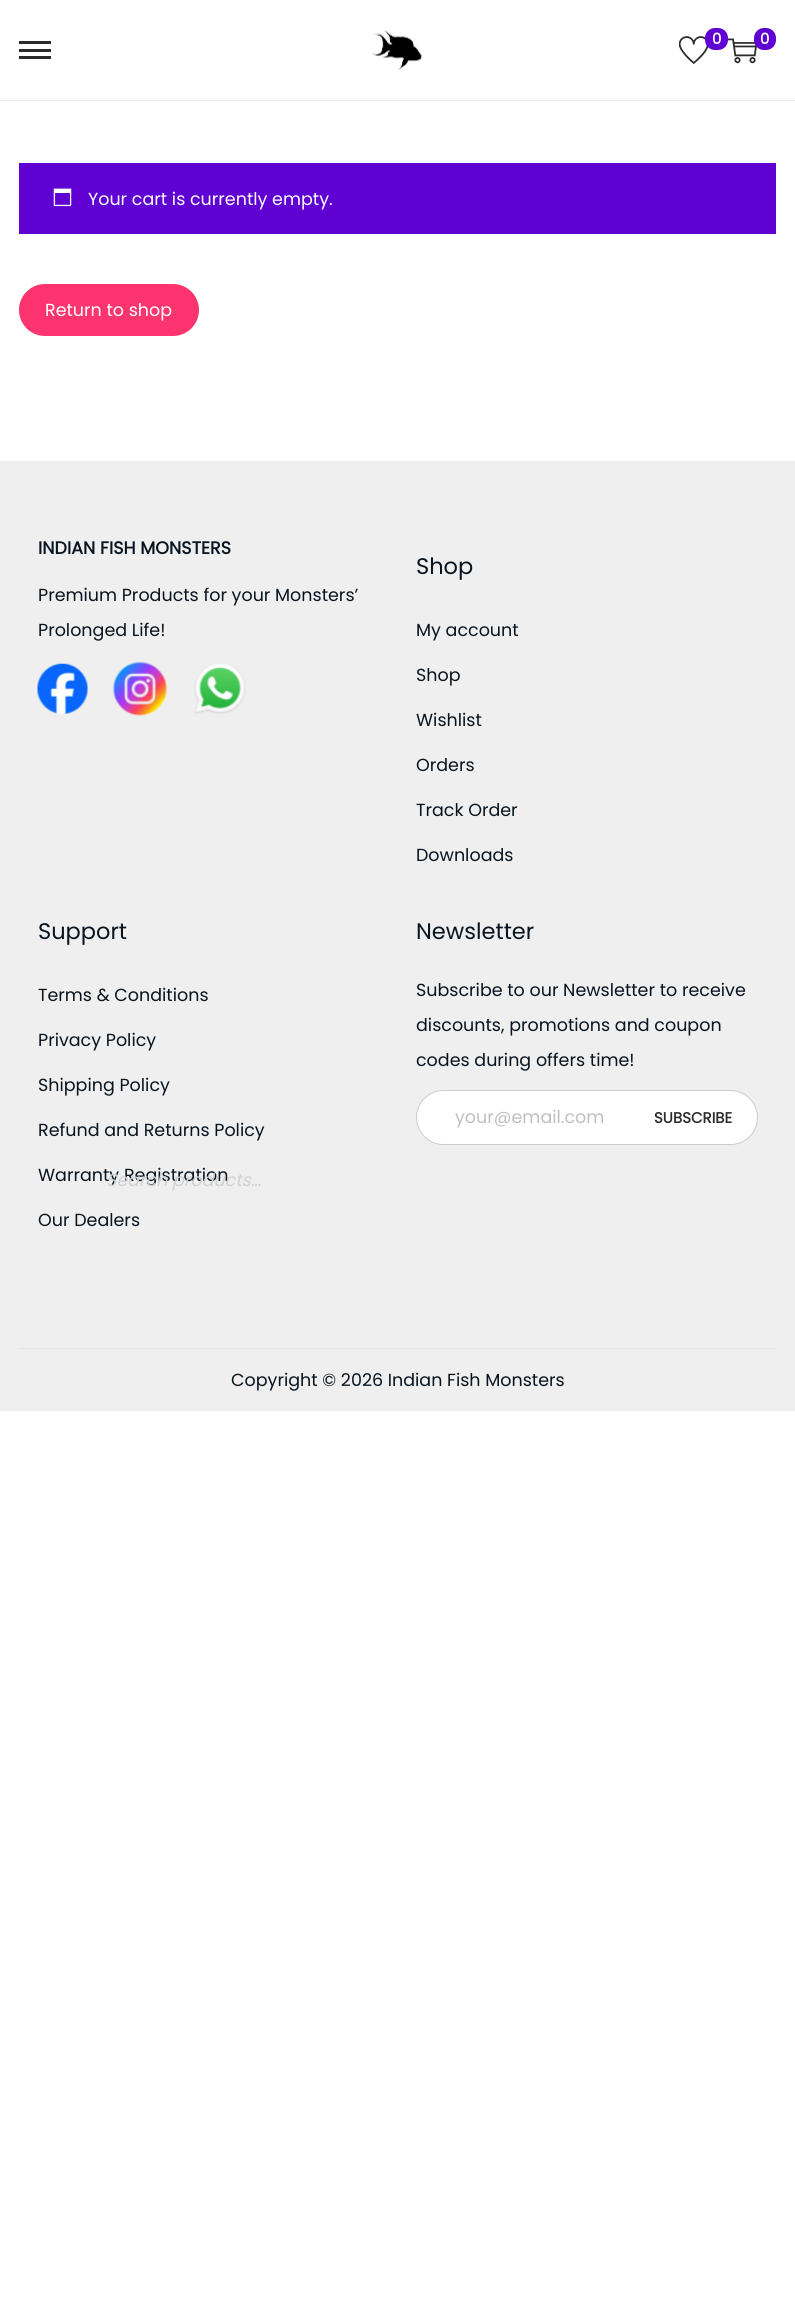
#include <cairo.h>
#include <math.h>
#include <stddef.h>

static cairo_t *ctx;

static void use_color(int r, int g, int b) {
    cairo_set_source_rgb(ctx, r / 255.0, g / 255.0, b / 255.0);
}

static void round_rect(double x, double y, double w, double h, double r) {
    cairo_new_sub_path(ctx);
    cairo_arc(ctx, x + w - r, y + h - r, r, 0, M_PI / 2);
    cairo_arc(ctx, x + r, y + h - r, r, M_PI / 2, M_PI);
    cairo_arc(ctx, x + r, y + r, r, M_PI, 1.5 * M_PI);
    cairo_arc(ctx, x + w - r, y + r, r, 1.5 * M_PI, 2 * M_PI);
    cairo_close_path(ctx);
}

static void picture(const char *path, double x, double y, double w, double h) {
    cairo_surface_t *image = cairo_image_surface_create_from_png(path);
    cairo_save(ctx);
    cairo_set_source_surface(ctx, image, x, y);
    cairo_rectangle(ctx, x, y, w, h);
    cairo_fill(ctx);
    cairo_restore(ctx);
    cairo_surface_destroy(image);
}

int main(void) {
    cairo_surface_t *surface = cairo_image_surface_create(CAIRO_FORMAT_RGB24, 795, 2298);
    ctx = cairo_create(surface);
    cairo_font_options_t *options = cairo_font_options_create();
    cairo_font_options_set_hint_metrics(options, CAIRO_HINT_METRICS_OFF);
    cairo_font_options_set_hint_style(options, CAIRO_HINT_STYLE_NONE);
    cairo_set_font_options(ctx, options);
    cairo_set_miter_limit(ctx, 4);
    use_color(255, 255, 255);
    cairo_paint(ctx);
    use_color(234, 234, 234);
    cairo_rectangle(ctx, 0, 100, 795, 1);
    cairo_fill(ctx);
    picture("img1.png", 373, 30, 49, 40);
    picture("img2.png", 679, 36, 30, 28);
    use_color(96, 1, 211);
    round_rect(705, 28, 23, 22, 10);
    cairo_fill(ctx);
    cairo_select_font_face(ctx, "Poppins", CAIRO_FONT_SLANT_NORMAL, CAIRO_FONT_WEIGHT_BOLD);
    cairo_set_font_size(ctx, 15);
    use_color(255, 255, 255);
    cairo_move_to(ctx, 712, 44);
    cairo_show_text(ctx, "0");
    picture("img3.png", 728, 38, 29, 26);
    use_color(96, 1, 211);
    round_rect(754, 28, 22, 22, 10);
    cairo_fill(ctx);
    use_color(255, 255, 255);
    cairo_move_to(ctx, 760, 44);
    cairo_show_text(ctx, "0");
    use_color(43, 43, 43);
    cairo_rectangle(ctx, 19, 49, 32, 3);
    cairo_fill(ctx);
    cairo_rectangle(ctx, 19, 41, 32, 3);
    cairo_fill(ctx);
    cairo_rectangle(ctx, 19, 56, 32, 3);
    cairo_fill(ctx);
    use_color(96, 1, 211);
    cairo_rectangle(ctx, 19, 163, 757, 71);
    cairo_fill(ctx);
    picture("img4.png", 53, 188, 19, 19);
    cairo_select_font_face(ctx, "Poppins", CAIRO_FONT_SLANT_NORMAL, CAIRO_FONT_WEIGHT_NORMAL);
    cairo_set_font_size(ctx, 17.5);
    use_color(255, 255, 255);
    cairo_move_to(ctx, 88, 205);
    cairo_show_text(ctx, "Your cart is currently empty.");
    use_color(253, 52, 110);
    round_rect(19, 284, 180, 52, 26);
    cairo_fill(ctx);
    use_color(255, 255, 255);
    cairo_move_to(ctx, 45, 316);
    cairo_show_text(ctx, "Return to shop");
    use_color(239, 239, 239);
    cairo_rectangle(ctx, 0, 461, 795, 950);
    cairo_fill(ctx);
    cairo_select_font_face(ctx, "Poppins", CAIRO_FONT_SLANT_NORMAL, CAIRO_FONT_WEIGHT_BOLD);
    use_color(8, 20, 32);
    cairo_move_to(ctx, 38, 554);
    cairo_show_text(ctx, "INDIAN FISH MONSTERS");
    cairo_select_font_face(ctx, "Poppins", CAIRO_FONT_SLANT_NORMAL, CAIRO_FONT_WEIGHT_NORMAL);
    cairo_move_to(ctx, 38, 601);
    cairo_show_text(ctx, "Premium Products for your Monsters’");
    cairo_move_to(ctx, 38, 636);
    cairo_show_text(ctx, "Prolonged Life!");
    picture("img5.png", 37, 663, 51, 51);
    picture("img6.png", 112, 661, 56, 55);
    picture("img7.png", 194, 664, 52, 50);
    cairo_set_font_size(ctx, 22.5);
    cairo_move_to(ctx, 416, 574);
    cairo_show_text(ctx, "Shop");
    cairo_set_font_size(ctx, 17.5);
    cairo_move_to(ctx, 416, 636);
    cairo_show_text(ctx, "My account");
    cairo_move_to(ctx, 416, 681);
    cairo_show_text(ctx, "Shop");
    cairo_move_to(ctx, 416, 726);
    cairo_show_text(ctx, "Wishlist");
    cairo_move_to(ctx, 416, 771);
    cairo_show_text(ctx, "Orders");
    cairo_move_to(ctx, 416, 816);
    cairo_show_text(ctx, "Track Order");
    cairo_move_to(ctx, 416, 861);
    cairo_show_text(ctx, "Downloads");
    cairo_set_font_size(ctx, 22.5);
    cairo_move_to(ctx, 38, 939);
    cairo_show_text(ctx, "Support");
    cairo_set_font_size(ctx, 17.5);
    cairo_move_to(ctx, 38, 1001);
    cairo_show_text(ctx, "Terms & Conditions");
    cairo_move_to(ctx, 38, 1046);
    cairo_show_text(ctx, "Privacy Policy");
    cairo_move_to(ctx, 38, 1091);
    cairo_show_text(ctx, "Shipping Policy");
    cairo_move_to(ctx, 38, 1136);
    cairo_show_text(ctx, "Refund and Returns Policy");
    cairo_move_to(ctx, 38, 1181);
    cairo_show_text(ctx, "Warranty Registration");
    cairo_move_to(ctx, 38, 1226);
    cairo_show_text(ctx, "Our Dealers");
    cairo_set_font_size(ctx, 22.5);
    cairo_move_to(ctx, 416, 939);
    cairo_show_text(ctx, "Newsletter");
    cairo_set_font_size(ctx, 17.5);
    cairo_move_to(ctx, 416, 996);
    cairo_show_text(ctx, "Subscribe to our Newsletter to receive");
    cairo_move_to(ctx, 416, 1031);
    cairo_show_text(ctx, "discounts, promotions and coupon");
    cairo_move_to(ctx, 416, 1066);
    cairo_show_text(ctx, "codes during offers time!");
    use_color(255, 255, 255);
    round_rect(416.5, 1090.5, 341, 54, 27);
    cairo_fill_preserve(ctx);
    use_color(204, 204, 204);
    cairo_set_line_width(ctx, 1);
    cairo_stroke(ctx);
    use_color(191, 191, 191);
    cairo_move_to(ctx, 455, 1123);
    cairo_show_text(ctx, "your@email.com");
    cairo_select_font_face(ctx, "Poppins", CAIRO_FONT_SLANT_NORMAL, CAIRO_FONT_WEIGHT_BOLD);
    cairo_set_font_size(ctx, 15);
    use_color(43, 43, 43);
    cairo_move_to(ctx, 654, 1123);
    cairo_show_text(ctx, "SUBSCRIBE");
    use_color(227, 227, 227);
    cairo_rectangle(ctx, 19, 1348, 757, 1);
    cairo_fill(ctx);
    cairo_select_font_face(ctx, "Poppins", CAIRO_FONT_SLANT_NORMAL, CAIRO_FONT_WEIGHT_NORMAL);
    cairo_set_font_size(ctx, 17.5);
    use_color(8, 20, 32);
    cairo_move_to(ctx, 231, 1386);
    cairo_show_text(ctx, "Copyright © 2026 Indian Fish Monsters");
    cairo_select_font_face(ctx, "Poppins", CAIRO_FONT_SLANT_ITALIC, CAIRO_FONT_WEIGHT_NORMAL);
    use_color(206, 208, 210);
    cairo_move_to(ctx, 106, 1186);
    cairo_show_text(ctx, "Search products…");
    cairo_surface_write_to_png(surface, "result.png");
    cairo_font_options_destroy(options);
    cairo_destroy(ctx);
    cairo_surface_destroy(surface);
    return 0;
}
